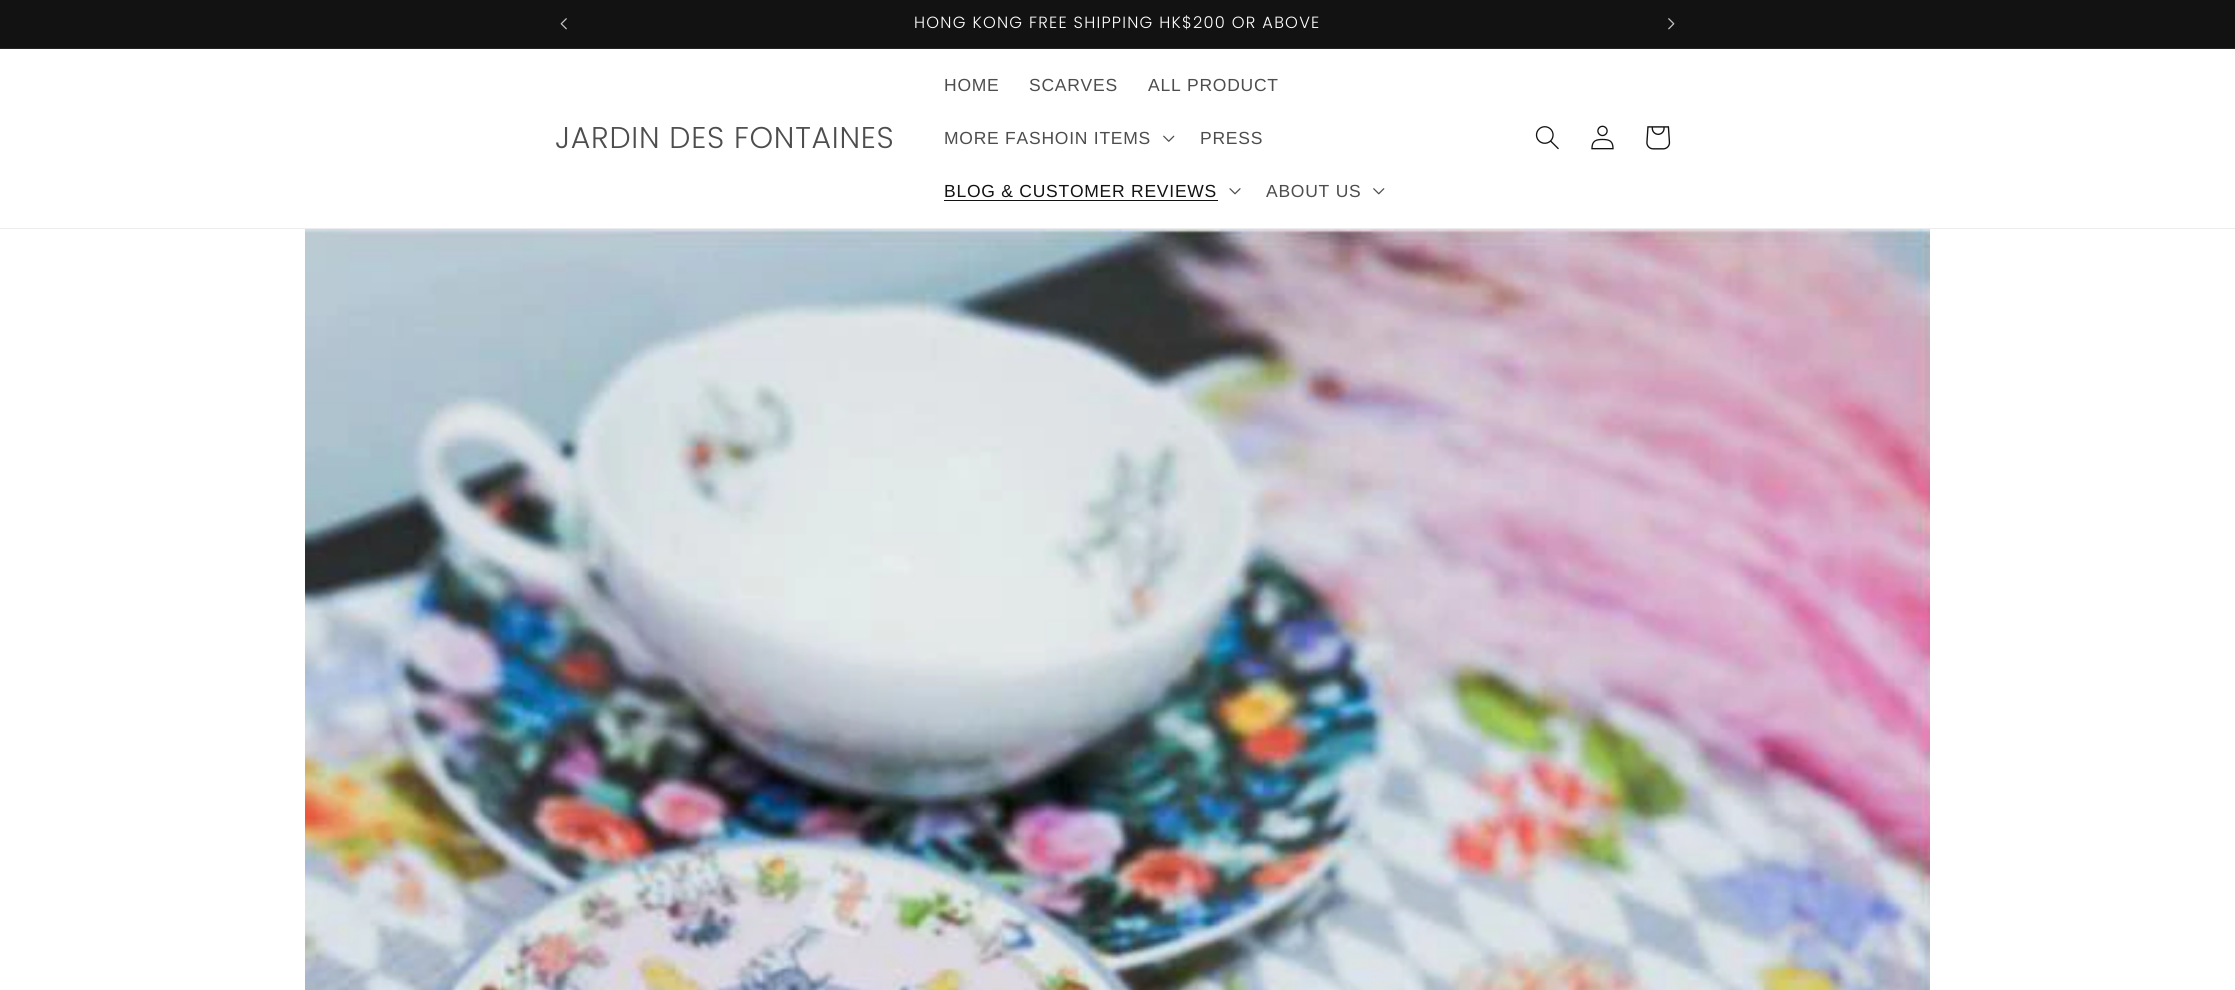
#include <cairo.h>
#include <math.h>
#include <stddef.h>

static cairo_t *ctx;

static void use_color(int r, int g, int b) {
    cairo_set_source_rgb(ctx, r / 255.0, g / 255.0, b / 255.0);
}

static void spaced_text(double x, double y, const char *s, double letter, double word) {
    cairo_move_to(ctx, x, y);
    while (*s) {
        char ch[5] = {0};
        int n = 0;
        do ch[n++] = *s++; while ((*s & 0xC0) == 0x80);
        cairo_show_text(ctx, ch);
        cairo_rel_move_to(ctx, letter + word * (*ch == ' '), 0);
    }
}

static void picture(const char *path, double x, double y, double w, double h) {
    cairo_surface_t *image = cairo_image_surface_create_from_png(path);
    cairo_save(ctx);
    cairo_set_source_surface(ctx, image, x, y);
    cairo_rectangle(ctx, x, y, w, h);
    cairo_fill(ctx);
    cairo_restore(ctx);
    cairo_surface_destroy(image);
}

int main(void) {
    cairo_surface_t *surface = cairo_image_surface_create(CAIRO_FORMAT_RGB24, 2235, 990);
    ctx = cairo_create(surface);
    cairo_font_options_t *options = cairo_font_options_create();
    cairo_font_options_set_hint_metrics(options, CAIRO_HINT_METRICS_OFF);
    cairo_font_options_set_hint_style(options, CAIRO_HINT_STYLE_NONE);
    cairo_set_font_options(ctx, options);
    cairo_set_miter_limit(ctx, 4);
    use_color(255, 255, 255);
    cairo_paint(ctx);
    use_color(18, 18, 18);
    cairo_rectangle(ctx, 0, 0, 2235, 48);
    cairo_fill(ctx);
    use_color(37, 37, 37);
    cairo_rectangle(ctx, 0, 48, 2235, 1);
    cairo_fill(ctx);
    picture("img1.png", 560, 18, 7, 12);
    cairo_select_font_face(ctx, "Poppins Light", CAIRO_FONT_SLANT_NORMAL, CAIRO_FONT_WEIGHT_NORMAL);
    cairo_set_font_size(ctx, 16.25);
    use_color(255, 255, 255);
    spaced_text(914, 28, "HONG KONG FREE SHIPPING HK$200 OR ABOVE", 1.25, 0);
    picture("img2.png", 1668, 18, 7, 12);
    use_color(236, 236, 236);
    cairo_rectangle(ctx, 0, 228, 2235, 1);
    cairo_fill(ctx);
    cairo_set_font_size(ctx, 30);
    use_color(77, 77, 77);
    spaced_text(555, 148, "JARDIN DES FONTAINES", 0.75, 0);
    cairo_select_font_face(ctx, "Liberation Sans", CAIRO_FONT_SLANT_NORMAL, CAIRO_FONT_WEIGHT_NORMAL);
    cairo_set_font_size(ctx, 17.5);
    spaced_text(944, 91, "HOME", 0.75, 0);
    spaced_text(1029, 91, "SCARVES", 0.75, 0);
    spaced_text(1148, 91, "ALL PRODUCT", 0.75, 0);
    spaced_text(944, 144, "MORE FASHOIN ITEMS", 0.75, 0);
    picture("img3.png", 1163, 135, 12, 7);
    spaced_text(1200, 144, "PRESS", 0.75, 0);
    use_color(18, 18, 18);
    spaced_text(944, 197, "BLOG & CUSTOMER REVIEWS", 0.75, 0);
    cairo_rectangle(ctx, 944, 200, 274, 1);
    cairo_fill(ctx);
    picture("img4.png", 1229, 188, 12, 7);
    use_color(77, 77, 77);
    spaced_text(1266, 197, "ABOUT US", 0.75, 0);
    picture("img5.png", 1373, 188, 12, 7);
    picture("img6.png", 1535, 126, 24, 24);
    picture("img7.png", 1591, 125, 23, 25);
    picture("img8.png", 1646, 126, 25, 24);
    picture("img9.png", 305, 229, 1625, 761);
    cairo_surface_write_to_png(surface, "result.png");
    cairo_font_options_destroy(options);
    cairo_destroy(ctx);
    cairo_surface_destroy(surface);
    return 0;
}
